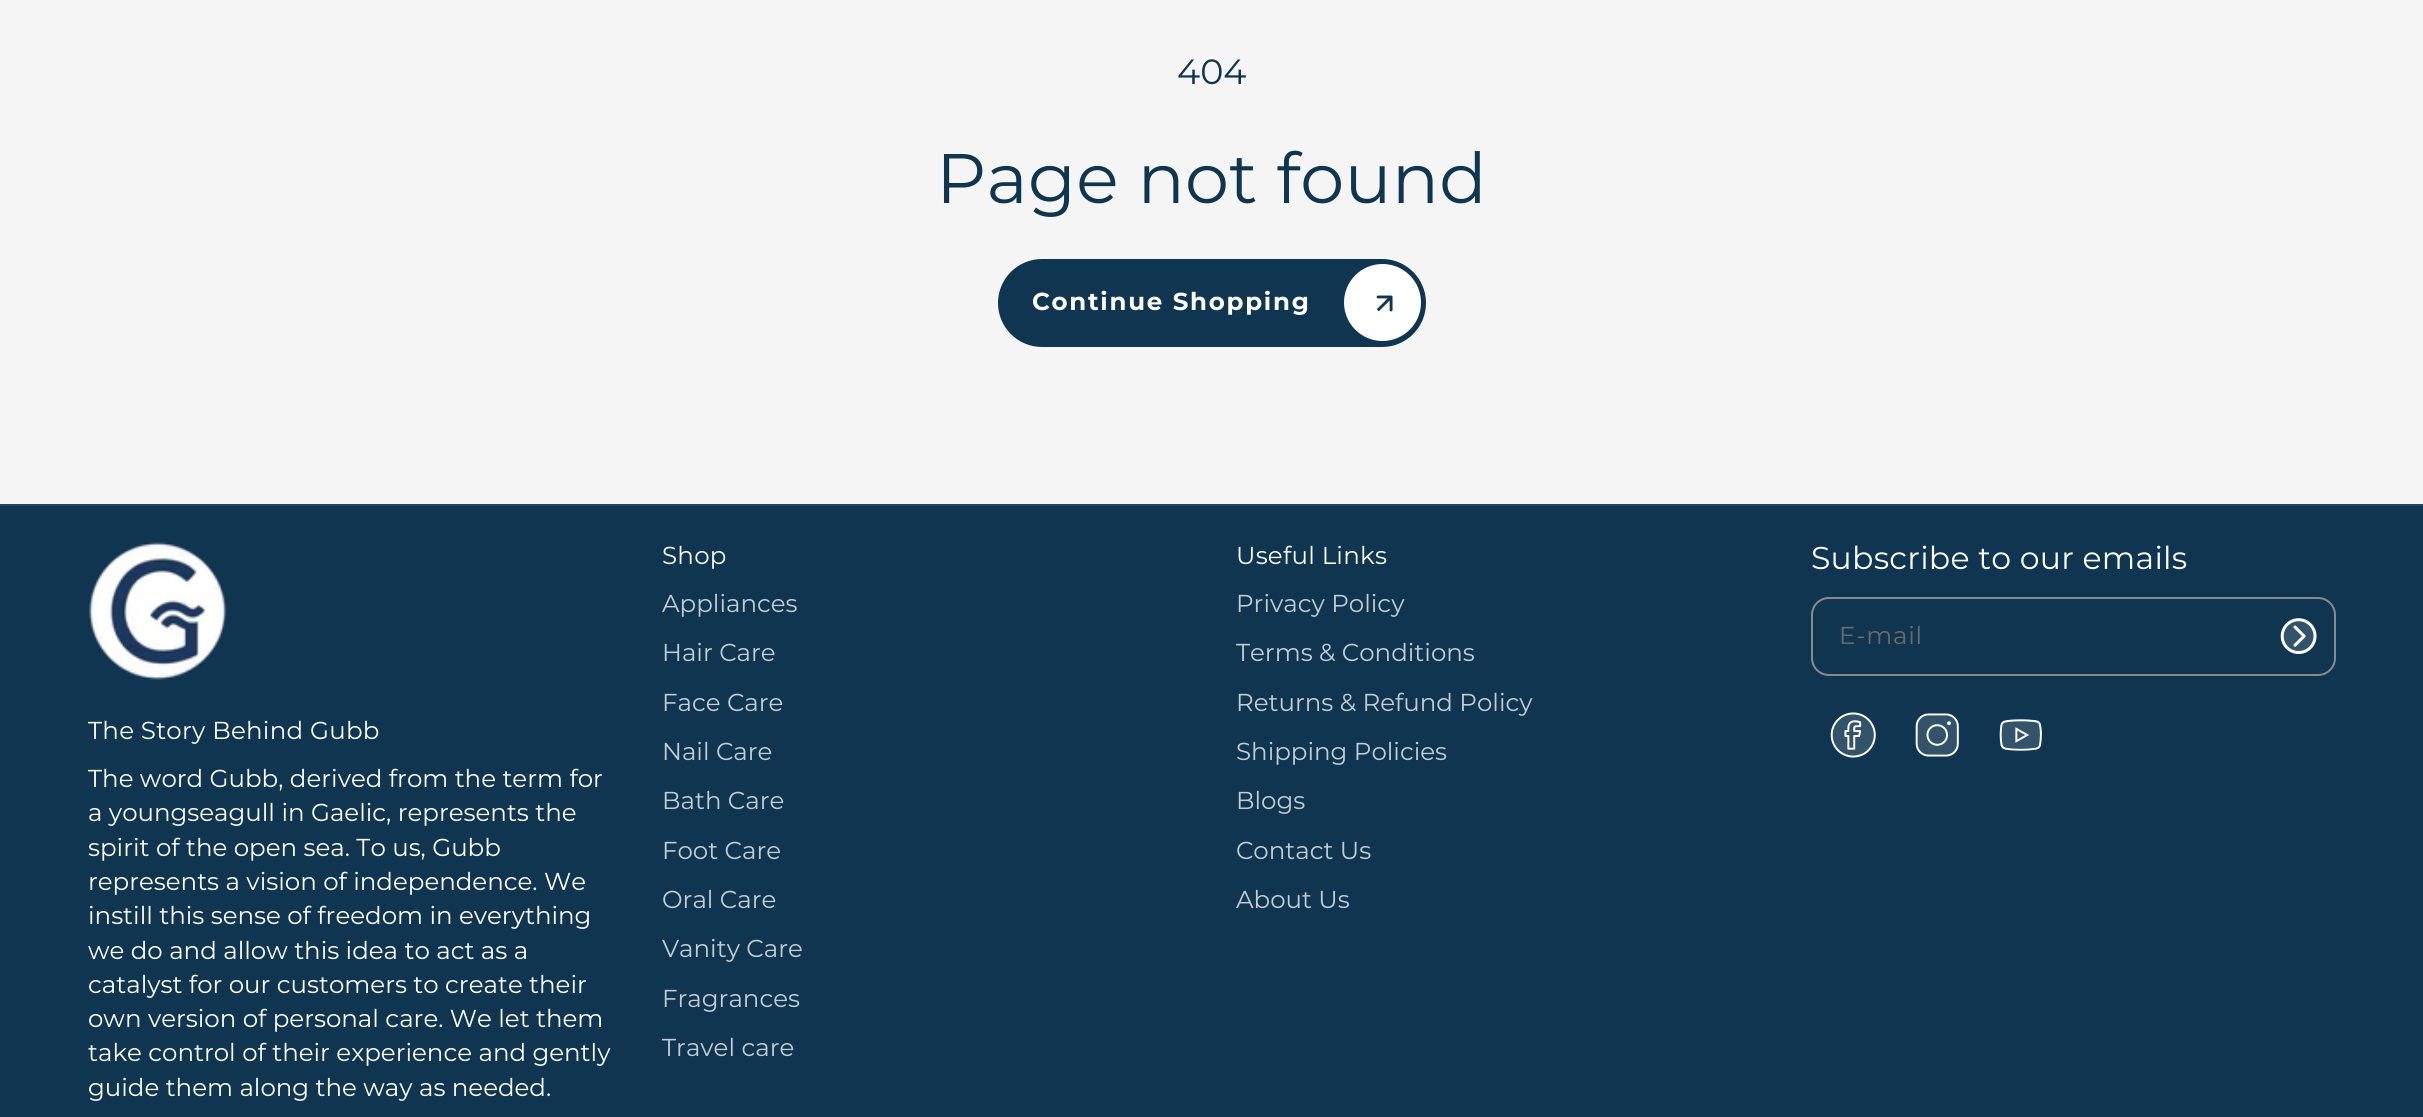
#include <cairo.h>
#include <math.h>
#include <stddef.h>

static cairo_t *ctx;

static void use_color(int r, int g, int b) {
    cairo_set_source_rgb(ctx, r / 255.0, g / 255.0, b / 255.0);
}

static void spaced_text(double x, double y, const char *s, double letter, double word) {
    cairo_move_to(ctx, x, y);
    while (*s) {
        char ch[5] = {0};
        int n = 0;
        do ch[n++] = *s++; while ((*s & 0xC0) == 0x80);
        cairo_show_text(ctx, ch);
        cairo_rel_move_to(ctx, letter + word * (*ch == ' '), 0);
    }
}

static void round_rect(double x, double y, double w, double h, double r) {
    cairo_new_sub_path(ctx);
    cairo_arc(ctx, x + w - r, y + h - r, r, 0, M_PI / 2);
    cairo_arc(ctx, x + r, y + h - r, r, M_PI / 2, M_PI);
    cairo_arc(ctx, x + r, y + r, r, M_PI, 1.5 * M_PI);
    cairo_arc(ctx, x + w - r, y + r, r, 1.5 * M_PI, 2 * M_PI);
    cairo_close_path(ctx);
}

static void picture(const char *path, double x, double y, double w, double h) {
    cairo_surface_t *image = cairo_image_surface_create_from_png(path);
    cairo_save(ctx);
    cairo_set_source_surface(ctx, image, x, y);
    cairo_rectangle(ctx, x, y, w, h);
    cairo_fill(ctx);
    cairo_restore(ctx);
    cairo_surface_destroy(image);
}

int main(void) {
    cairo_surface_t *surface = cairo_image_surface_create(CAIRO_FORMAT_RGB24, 2423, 1117);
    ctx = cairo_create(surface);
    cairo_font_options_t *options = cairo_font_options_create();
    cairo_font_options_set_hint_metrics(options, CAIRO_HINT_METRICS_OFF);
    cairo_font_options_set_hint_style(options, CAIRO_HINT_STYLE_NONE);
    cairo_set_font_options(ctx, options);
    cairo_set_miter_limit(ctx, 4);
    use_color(245, 245, 245);
    cairo_paint(ctx);
    cairo_select_font_face(ctx, "Montserrat", CAIRO_FONT_SLANT_NORMAL, CAIRO_FONT_WEIGHT_NORMAL);
    cairo_set_font_size(ctx, 35);
    use_color(15, 53, 81);
    cairo_move_to(ctx, 1177, 84);
    cairo_show_text(ctx, "404");
    cairo_set_font_size(ctx, 70);
    spaced_text(936, 203, "Page not found", 0.25, 0);
    round_rect(998, 259, 428, 88, 44);
    cairo_fill(ctx);
    cairo_select_font_face(ctx, "Montserrat", CAIRO_FONT_SLANT_NORMAL, CAIRO_FONT_WEIGHT_BOLD);
    cairo_set_font_size(ctx, 24.5);
    use_color(255, 255, 255);
    spaced_text(1032, 310, "Continue Shopping", 1.75, 0);
    cairo_new_path(ctx);
    cairo_arc(ctx, 1382.5, 302.5, 38.5, 0, 2 * M_PI);
    cairo_fill(ctx);
    picture("img1.png", 1376, 295, 17, 17);
    use_color(15, 53, 81);
    cairo_rectangle(ctx, 0, 506, 2423, 611);
    cairo_fill(ctx);
    use_color(34, 69, 95);
    cairo_rectangle(ctx, 0, 504, 2423, 2);
    cairo_fill(ctx);
    cairo_select_font_face(ctx, "Montserrat", CAIRO_FONT_SLANT_NORMAL, CAIRO_FONT_WEIGHT_NORMAL);
    use_color(255, 255, 255);
    spaced_text(662, 564, "Shop", 0.25, 0);
    use_color(195, 205, 212);
    cairo_move_to(ctx, 662, 612);
    cairo_show_text(ctx, "Appliances");
    cairo_move_to(ctx, 662, 661);
    cairo_show_text(ctx, "Hair Care");
    cairo_move_to(ctx, 662, 711);
    cairo_show_text(ctx, "Face Care");
    cairo_move_to(ctx, 662, 760);
    cairo_show_text(ctx, "Nail Care");
    cairo_move_to(ctx, 662, 809);
    cairo_show_text(ctx, "Bath Care");
    cairo_move_to(ctx, 662, 859);
    cairo_show_text(ctx, "Foot Care");
    cairo_move_to(ctx, 662, 908);
    cairo_show_text(ctx, "Oral Care");
    cairo_move_to(ctx, 662, 957);
    cairo_show_text(ctx, "Vanity Care");
    cairo_move_to(ctx, 662, 1007);
    cairo_show_text(ctx, "Fragrances");
    cairo_move_to(ctx, 662, 1056);
    cairo_show_text(ctx, "Travel care");
    use_color(255, 255, 255);
    spaced_text(1236, 564, "Useful Links", 0.25, 0);
    use_color(195, 205, 212);
    cairo_move_to(ctx, 1236, 612);
    cairo_show_text(ctx, "Privacy Policy");
    cairo_move_to(ctx, 1236, 661);
    cairo_show_text(ctx, "Terms & Conditions");
    cairo_move_to(ctx, 1236, 711);
    cairo_show_text(ctx, "Returns & Refund Policy");
    cairo_move_to(ctx, 1236, 760);
    cairo_show_text(ctx, "Shipping Policies");
    cairo_move_to(ctx, 1236, 809);
    cairo_show_text(ctx, "Blogs");
    cairo_move_to(ctx, 1236, 859);
    cairo_show_text(ctx, "Contact Us");
    cairo_move_to(ctx, 1236, 908);
    cairo_show_text(ctx, "About Us");
    cairo_set_font_size(ctx, 31.5);
    use_color(255, 255, 255);
    spaced_text(1811, 569, "Subscribe to our emails", 0.25, 0);
    round_rect(1812, 598, 523, 77, 17);
    use_color(138, 138, 138);
    cairo_stroke(ctx);
    cairo_set_font_size(ctx, 24.5);
    use_color(107, 107, 107);
    spaced_text(1839, 644, "E-mail", 0.75, 0);
    picture("img2.png", 2280, 618, 37, 36);
    picture("img3.png", 1830, 712, 46, 46);
    picture("img4.png", 1915, 713, 44, 44);
    picture("img5.png", 1999, 719, 43, 32);
    picture("img6.png", 88, 542, 139, 138);
    use_color(255, 255, 255);
    spaced_text(88, 739, "The Story Behind Gubb", 0.25, 0);
    cairo_move_to(ctx, 88, 787);
    cairo_show_text(ctx, "The word Gubb, derived from the term for");
    cairo_move_to(ctx, 88, 821);
    cairo_show_text(ctx, "a youngseagull in Gaelic, represents the");
    cairo_move_to(ctx, 88, 856);
    cairo_show_text(ctx, "spirit of the open sea. To us, Gubb");
    cairo_move_to(ctx, 88, 890);
    cairo_show_text(ctx, "represents a vision of independence. We");
    cairo_move_to(ctx, 88, 924);
    cairo_show_text(ctx, "instill this sense of freedom in everything");
    cairo_move_to(ctx, 88, 959);
    cairo_show_text(ctx, "we do and allow this idea to act as a");
    cairo_move_to(ctx, 88, 993);
    cairo_show_text(ctx, "catalyst for our customers to create their");
    cairo_move_to(ctx, 88, 1027);
    cairo_show_text(ctx, "own version of personal care. We let them");
    cairo_move_to(ctx, 88, 1061);
    cairo_show_text(ctx, "take control of their experience and gently");
    cairo_move_to(ctx, 88, 1096);
    cairo_show_text(ctx, "guide them along the way as needed.");
    cairo_surface_write_to_png(surface, "result.png");
    cairo_font_options_destroy(options);
    cairo_destroy(ctx);
    cairo_surface_destroy(surface);
    return 0;
}
